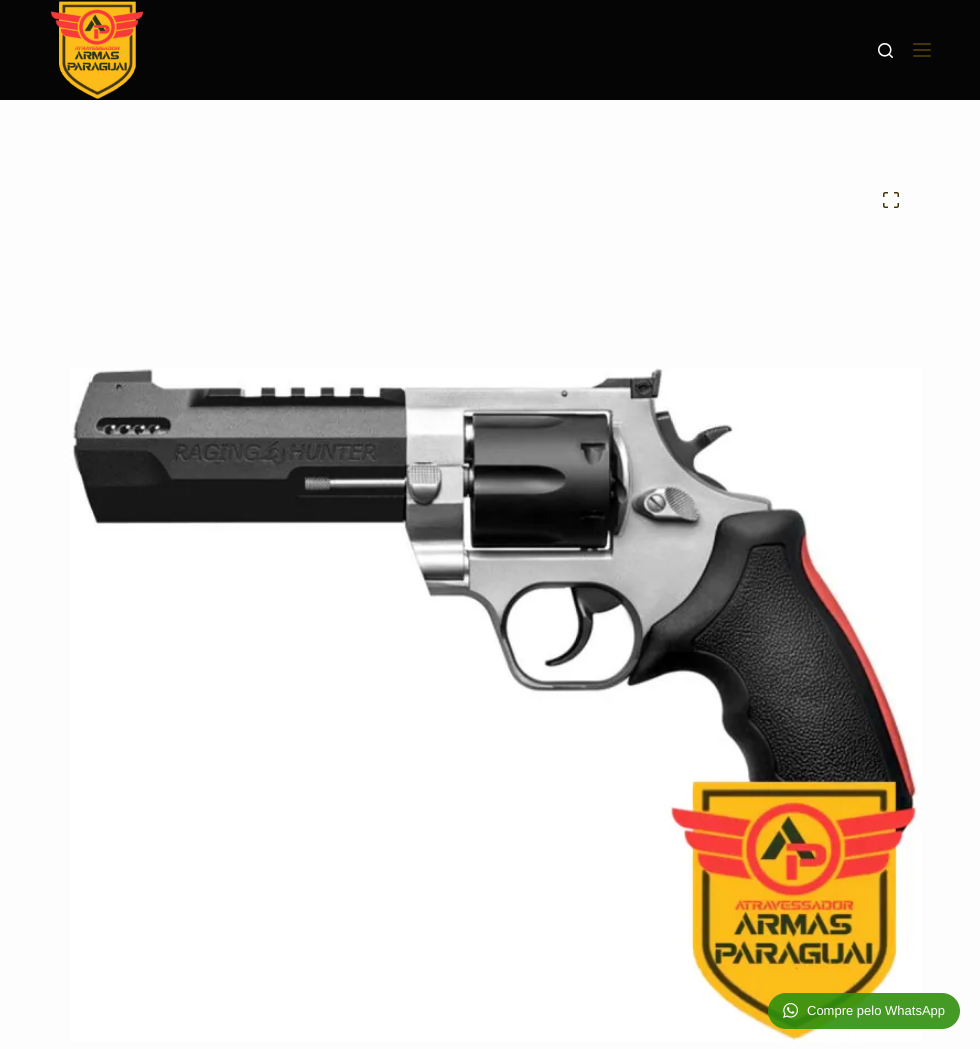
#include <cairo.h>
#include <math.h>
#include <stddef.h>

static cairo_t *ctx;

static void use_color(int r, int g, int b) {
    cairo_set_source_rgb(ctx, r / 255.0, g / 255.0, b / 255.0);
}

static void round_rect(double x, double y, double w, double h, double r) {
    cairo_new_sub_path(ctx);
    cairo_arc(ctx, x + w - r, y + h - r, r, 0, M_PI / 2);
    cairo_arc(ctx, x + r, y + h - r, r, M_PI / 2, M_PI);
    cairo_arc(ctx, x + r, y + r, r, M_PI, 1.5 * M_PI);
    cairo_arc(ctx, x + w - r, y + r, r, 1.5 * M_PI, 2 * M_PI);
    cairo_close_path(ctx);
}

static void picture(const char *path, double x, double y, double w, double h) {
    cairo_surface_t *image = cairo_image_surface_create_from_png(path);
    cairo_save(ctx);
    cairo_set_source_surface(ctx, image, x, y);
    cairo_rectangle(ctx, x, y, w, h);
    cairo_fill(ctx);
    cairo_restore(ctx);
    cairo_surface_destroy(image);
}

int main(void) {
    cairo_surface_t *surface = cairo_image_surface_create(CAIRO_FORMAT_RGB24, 980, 1049);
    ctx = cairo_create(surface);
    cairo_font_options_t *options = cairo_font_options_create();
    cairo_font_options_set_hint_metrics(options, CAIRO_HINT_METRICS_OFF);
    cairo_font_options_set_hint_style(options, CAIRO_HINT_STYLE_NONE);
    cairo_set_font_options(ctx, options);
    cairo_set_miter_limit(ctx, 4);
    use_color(253, 253, 253);
    cairo_paint(ctx);
    use_color(5, 5, 5);
    cairo_rectangle(ctx, 0, 0, 980, 100);
    cairo_fill(ctx);
    picture("img1.png", 51, 1, 92, 99);
    picture("img2.png", 878, 43, 15, 15);
    use_color(68, 53, 10);
    round_rect(913, 43, 18, 2, 1);
    cairo_fill(ctx);
    round_rect(913, 49, 18, 2, 1);
    cairo_fill(ctx);
    round_rect(913, 55, 18, 2, 1);
    cairo_fill(ctx);
    picture("img3.png", 883, 192, 16, 16);
    picture("img4.png", 71, 368, 851, 674);
    cairo_set_source_rgba(ctx, 0.188, 0.561, 0.055, 0.9);
    round_rect(768, 993, 192, 36, 18);
    cairo_fill(ctx);
    picture("img5.png", 783, 1003, 15, 15);
    cairo_select_font_face(ctx, "Liberation Sans", CAIRO_FONT_SLANT_NORMAL, CAIRO_FONT_WEIGHT_NORMAL);
    cairo_set_font_size(ctx, 13);
    use_color(255, 255, 255);
    cairo_move_to(ctx, 807, 1015);
    cairo_show_text(ctx, "Compre pelo WhatsApp");
    cairo_surface_write_to_png(surface, "result.png");
    cairo_font_options_destroy(options);
    cairo_destroy(ctx);
    cairo_surface_destroy(surface);
    return 0;
}
